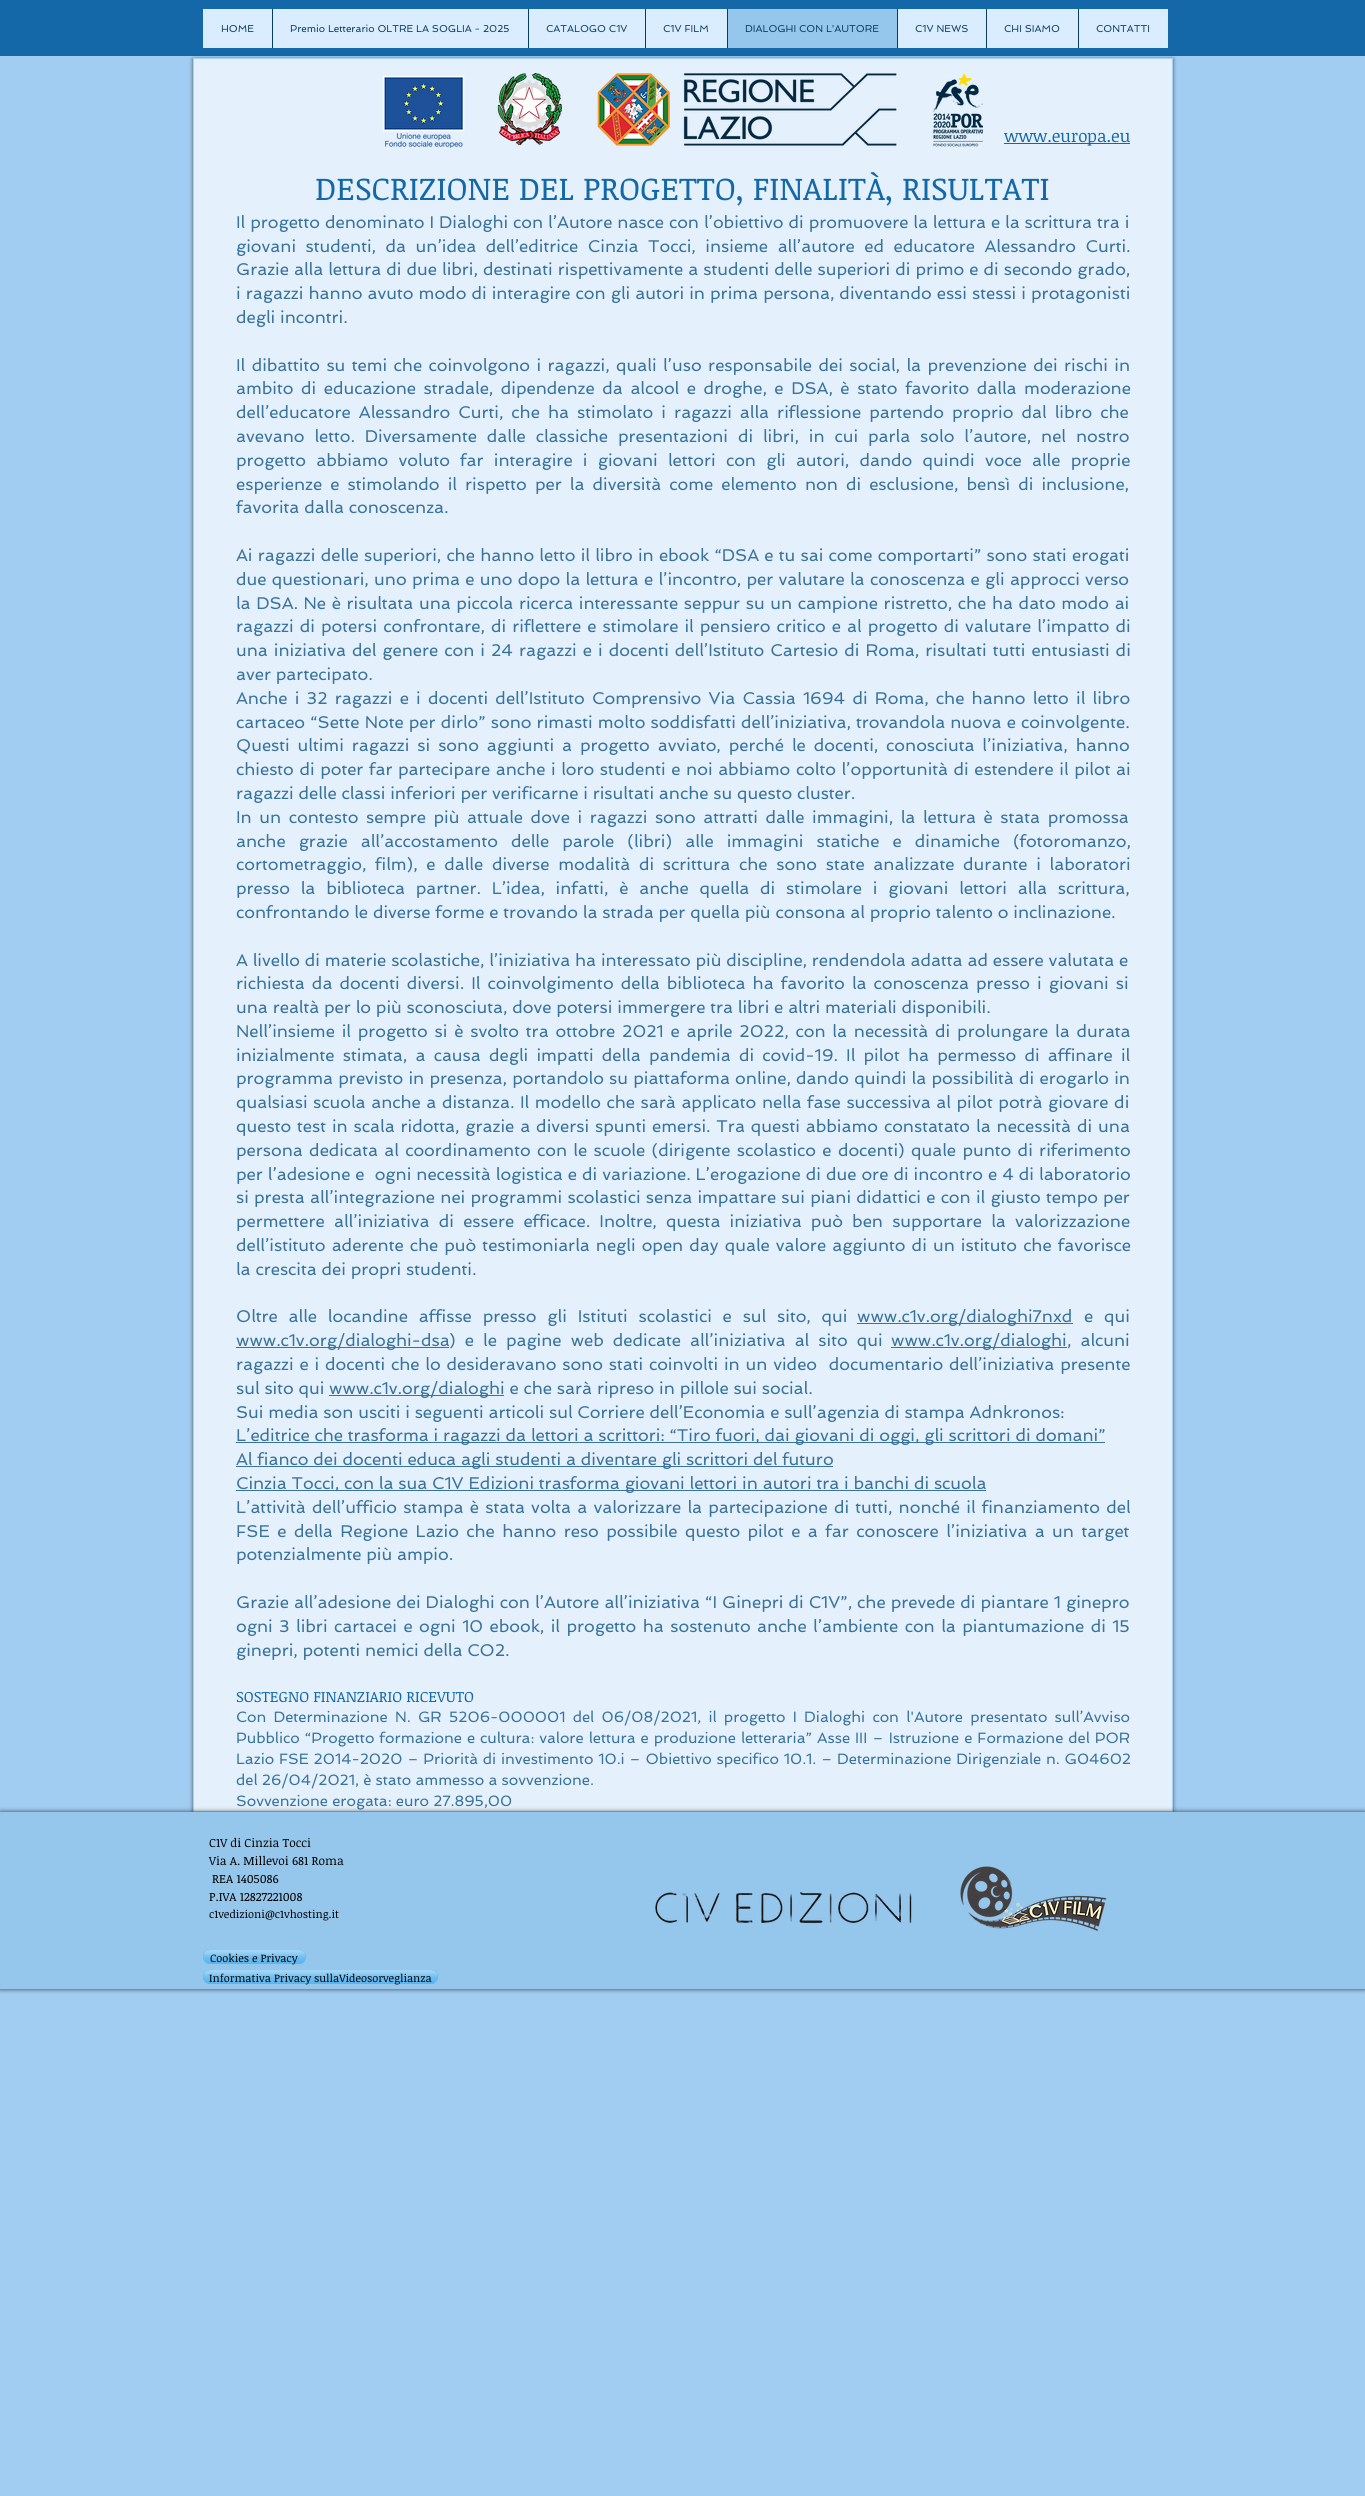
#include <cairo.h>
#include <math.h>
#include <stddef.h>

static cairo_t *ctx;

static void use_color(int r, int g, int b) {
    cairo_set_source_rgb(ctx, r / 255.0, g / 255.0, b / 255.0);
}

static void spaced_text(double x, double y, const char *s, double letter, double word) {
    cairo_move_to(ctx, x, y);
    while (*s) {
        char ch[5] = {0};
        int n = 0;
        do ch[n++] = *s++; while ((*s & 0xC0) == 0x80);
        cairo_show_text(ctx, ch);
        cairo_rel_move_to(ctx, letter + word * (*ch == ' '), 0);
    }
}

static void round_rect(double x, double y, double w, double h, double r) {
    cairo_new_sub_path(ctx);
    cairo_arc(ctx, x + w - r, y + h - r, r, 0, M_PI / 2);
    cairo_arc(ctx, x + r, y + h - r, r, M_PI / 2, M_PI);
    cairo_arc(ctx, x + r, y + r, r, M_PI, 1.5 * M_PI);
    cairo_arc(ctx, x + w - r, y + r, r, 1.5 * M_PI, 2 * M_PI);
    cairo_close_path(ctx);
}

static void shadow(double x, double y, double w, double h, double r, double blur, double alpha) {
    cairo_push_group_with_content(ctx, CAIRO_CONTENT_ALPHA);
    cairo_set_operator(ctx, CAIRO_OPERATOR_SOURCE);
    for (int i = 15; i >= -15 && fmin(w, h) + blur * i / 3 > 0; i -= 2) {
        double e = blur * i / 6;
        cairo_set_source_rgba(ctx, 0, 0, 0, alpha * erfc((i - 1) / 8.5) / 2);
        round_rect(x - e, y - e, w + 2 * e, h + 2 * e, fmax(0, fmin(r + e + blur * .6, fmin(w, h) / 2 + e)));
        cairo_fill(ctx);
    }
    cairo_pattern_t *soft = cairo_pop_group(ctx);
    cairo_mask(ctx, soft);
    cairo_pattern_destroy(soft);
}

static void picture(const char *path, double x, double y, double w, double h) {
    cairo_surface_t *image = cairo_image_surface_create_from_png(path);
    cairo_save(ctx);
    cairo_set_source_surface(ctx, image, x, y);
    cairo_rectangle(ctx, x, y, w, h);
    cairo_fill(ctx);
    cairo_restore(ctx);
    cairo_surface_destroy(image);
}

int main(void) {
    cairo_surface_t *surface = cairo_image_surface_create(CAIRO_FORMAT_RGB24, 1365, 2496);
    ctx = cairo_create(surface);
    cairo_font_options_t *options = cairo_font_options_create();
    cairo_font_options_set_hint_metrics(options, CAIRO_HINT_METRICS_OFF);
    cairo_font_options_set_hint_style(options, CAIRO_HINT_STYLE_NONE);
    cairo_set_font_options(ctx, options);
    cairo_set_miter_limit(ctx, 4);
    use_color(162, 205, 242);
    cairo_paint(ctx);
    use_color(20, 104, 168);
    cairo_rectangle(ctx, 0, 0, 1365, 56);
    cairo_fill(ctx);
    use_color(218, 237, 255);
    cairo_rectangle(ctx, 203, 9, 965, 39);
    cairo_fill(ctx);
    cairo_select_font_face(ctx, "Spinnaker", CAIRO_FONT_SLANT_NORMAL, CAIRO_FONT_WEIGHT_NORMAL);
    cairo_set_font_size(ctx, 10);
    use_color(12, 60, 96);
    cairo_move_to(ctx, 221, 32);
    cairo_show_text(ctx, "HOME");
    cairo_rectangle(ctx, 272, 9, 1, 39);
    cairo_fill(ctx);
    cairo_move_to(ctx, 290, 32);
    cairo_show_text(ctx, "Premio Letterario OLTRE LA SOGLIA - 2025");
    cairo_rectangle(ctx, 528, 9, 1, 39);
    cairo_fill(ctx);
    cairo_move_to(ctx, 546, 32);
    cairo_show_text(ctx, "CATALOGO C1V");
    cairo_rectangle(ctx, 645, 9, 1, 39);
    cairo_fill(ctx);
    cairo_move_to(ctx, 663, 32);
    cairo_show_text(ctx, "C1V FILM");
    use_color(149, 198, 236);
    cairo_rectangle(ctx, 728, 9, 169, 39);
    cairo_fill(ctx);
    use_color(12, 60, 96);
    cairo_rectangle(ctx, 727, 9, 1, 39);
    cairo_fill(ctx);
    cairo_move_to(ctx, 745, 32);
    cairo_show_text(ctx, "DIALOGHI CON L'AUTORE");
    cairo_rectangle(ctx, 897, 9, 1, 39);
    cairo_fill(ctx);
    cairo_move_to(ctx, 915, 32);
    cairo_show_text(ctx, "C1V NEWS");
    cairo_rectangle(ctx, 986, 9, 1, 39);
    cairo_fill(ctx);
    cairo_move_to(ctx, 1004, 32);
    cairo_show_text(ctx, "CHI SIAMO");
    cairo_rectangle(ctx, 1078, 9, 1, 39);
    cairo_fill(ctx);
    cairo_move_to(ctx, 1096, 32);
    cairo_show_text(ctx, "CONTATTI");
    use_color(0, 0, 0);
    shadow(193, 59, 980, 1754, 0, 2, 0.6);
    use_color(228, 241, 252);
    cairo_rectangle(ctx, 193.5, 58.5, 979, 1753);
    cairo_fill_preserve(ctx);
    use_color(168, 208, 240);
    cairo_set_line_width(ctx, 1);
    cairo_stroke(ctx);
    picture("img1.png", 383, 73, 600, 75);
    use_color(20, 104, 168);
    cairo_rectangle(ctx, 1004, 143, 126, 1);
    cairo_fill(ctx);
    cairo_select_font_face(ctx, "Noticia Text", CAIRO_FONT_SLANT_NORMAL, CAIRO_FONT_WEIGHT_NORMAL);
    cairo_set_font_size(ctx, 17);
    cairo_move_to(ctx, 1004, 142);
    cairo_show_text(ctx, "www.europa.eu");
    cairo_set_font_size(ctx, 32);
    cairo_move_to(ctx, 315, 200);
    cairo_show_text(ctx, "DESCRIZIONE DEL PROGETTO, FINALITÀ, RISULTATI");
    cairo_select_font_face(ctx, "Spinnaker", CAIRO_FONT_SLANT_NORMAL, CAIRO_FONT_WEIGHT_NORMAL);
    cairo_set_font_size(ctx, 17);
    use_color(57, 114, 155);
    spaced_text(236, 228, "Il progetto denominato I Dialoghi con l’Autore nasce con l’obiettivo di promuovere la lettura e la scrittura tra i", 0, 0.1);
    spaced_text(236, 252, "giovani studenti, da un’idea dell’editrice Cinzia Tocci, insieme all’autore ed educatore Alessandro Curti.", 0, 4.75);
    spaced_text(236, 275, "Grazie alla lettura di due libri, destinati rispettivamente a studenti delle superiori di primo e di secondo grado,", 0, 0.2);
    spaced_text(236, 299, "i ragazzi hanno avuto modo di interagire con gli autori in prima persona, diventando essi stessi i protagonisti", 0, 0.25);
    cairo_move_to(ctx, 236, 323);
    cairo_show_text(ctx, "degli incontri.");
    spaced_text(236, 371, "Il dibattito su temi che coinvolgono i ragazzi, quali l’uso responsabile dei social, la prevenzione dei rischi in", 0, 1.6);
    spaced_text(236, 394, "ambito di educazione stradale, dipendenze da alcool e droghe, e DSA, è stato favorito dalla moderazione", 0, 2.75);
    spaced_text(236, 418, "dell’educatore Alessandro Curti, che ha stimolato i ragazzi alla riflessione partendo proprio dal libro che", 0, 3.25);
    spaced_text(236, 442, "avevano letto. Diversamente dalle classiche presentazioni di libri, in cui parla solo l’autore, nel nostro", 0, 5.1);
    spaced_text(236, 466, "progetto abbiamo voluto far interagire i giovani lettori con gli autori, dando quindi voce alle proprie", 0, 5.4);
    spaced_text(236, 490, "esperienze e stimolando il rispetto per la diversità come elemento non di esclusione, bensì di inclusione,", 0, 3.25);
    cairo_move_to(ctx, 236, 513);
    cairo_show_text(ctx, "favorita dalla conoscenza.");
    spaced_text(236, 561, "Ai ragazzi delle superiori, che hanno letto il libro in ebook “DSA e tu sai come comportarti” sono stati erogati", 0, 0.4);
    spaced_text(236, 585, "due questionari, uno prima e uno dopo la lettura e l’incontro, per valutare la conoscenza e gli approcci verso", 0, 0.5);
    spaced_text(236, 609, "la DSA. Ne è risultata una piccola ricerca interessante seppur su un campione ristretto, che ha dato modo ai", 0, 0.8);
    spaced_text(236, 632, "ragazzi di potersi confrontare, di riflettere e stimolare il pensiero critico e al progetto di valutare l’impatto di", 0, 1.25);
    spaced_text(236, 656, "una iniziativa del genere con i 24 ragazzi e i docenti dell’Istituto Cartesio di Roma, risultati tutti entusiasti di", 0, 1.2);
    cairo_move_to(ctx, 236, 680);
    cairo_show_text(ctx, "aver partecipato.");
    spaced_text(236, 704, "Anche i 32 ragazzi e i docenti dell’Istituto Comprensivo Via Cassia 1694 di Roma, che hanno letto il libro", 0, 2.4);
    spaced_text(236, 728, "cartaceo “Sette Note per dirlo” sono rimasti molto soddisfatti dell’iniziativa, trovandola nuova e coinvolgente.", 0, 0.3);
    spaced_text(236, 751, "Questi ultimi ragazzi si sono aggiunti a progetto avviato, perché le docenti, conosciuta l’iniziativa, hanno", 0, 3.1);
    spaced_text(236, 775, "chiesto di poter far partecipare anche i loro studenti e noi abbiamo colto l’opportunità di estendere il pilot ai", 0, 0.75);
    cairo_move_to(ctx, 236, 799);
    cairo_show_text(ctx, "ragazzi delle classi inferiori per verificarne i risultati anche su questo cluster.");
    spaced_text(236, 823, "In un contesto sempre più attuale dove i ragazzi sono attratti dalle immagini, la lettura è stata promossa", 0, 2.75);
    spaced_text(236, 847, "anche grazie all’accostamento delle parole (libri) alle immagini statiche e dinamiche (fotoromanzo,", 0, 8.25);
    spaced_text(236, 870, "cortometraggio, film), e dalle diverse modalità di scrittura che sono state analizzate durante i laboratori", 0, 3.9);
    spaced_text(236, 894, "presso la biblioteca partner. L’idea, infatti, è anche quella di stimolare i giovani lettori alla scrittura,", 0, 6);
    cairo_move_to(ctx, 236, 918);
    cairo_show_text(ctx, "confrontando le diverse forme e trovando la strada per quella più consona al proprio talento o inclinazione.");
    cairo_move_to(ctx, 236, 966);
    cairo_show_text(ctx, "A livello di materie scolastiche, l’iniziativa ha interessato più discipline, rendendola adatta ad essere valutata e");
    spaced_text(236, 989, "richiesta da docenti diversi. Il coinvolgimento della biblioteca ha favorito la conoscenza presso i giovani si", 0, 2.25);
    cairo_move_to(ctx, 236, 1013);
    cairo_show_text(ctx, "una realtà per lo più sconosciuta, dove potersi immergere tra libri e altri materiali disponibili.");
    spaced_text(236, 1037, "Nell’insieme il progetto si è svolto tra ottobre 2021 e aprile 2022, con la necessità di prolungare la durata", 0, 2);
    spaced_text(236, 1061, "inizialmente stimata, a causa degli impatti della pandemia di covid-19. Il pilot ha permesso di affinare il", 0, 3.4);
    spaced_text(236, 1084, "programma previsto in presenza, portandolo su piattaforma online, dando quindi la possibilità di erogarlo in", 0, 0.4);
    spaced_text(236, 1108, "qualsiasi scuola anche a distanza. Il modello che sarà applicato nella fase successiva al pilot potrà giovare di", 0, 0.75);
    spaced_text(236, 1132, "questo test in scala ridotta, grazie a diversi spunti emersi. Tra questi abbiamo constatato la necessità di una", 0, 1.1);
    spaced_text(236, 1156, "persona dedicata al coordinamento con le scuole (dirigente scolastico e docenti) quale punto di riferimento", 0, 1.5);
    spaced_text(236, 1180, "per l’adesione e  ogni necessità logistica e di variazione. L’erogazione di due ore di incontro e 4 di laboratorio", 0, 0.2);
    spaced_text(236, 1203, "si presta all’integrazione nei programmi scolastici senza impattare sui piani didattici e con il giusto tempo per", 0, 0.4);
    spaced_text(236, 1227, "permettere all’iniziativa di essere efficace. Inoltre, questa iniziativa può ben supportare la valorizzazione", 0, 4.4);
    spaced_text(236, 1251, "dell’istituto aderente che può testimoniarla negli open day quale valore aggiunto di un istituto che favorisce", 0, 1.25);
    cairo_move_to(ctx, 236, 1275);
    cairo_show_text(ctx, "la crescita dei propri studenti.");
    spaced_text(236, 1322, "Oltre alle locandine affisse presso gli Istituti scolastici e sul sito, qui", 0, 6);
    cairo_rectangle(ctx, 857, 1323, 216, 1);
    cairo_fill(ctx);
    cairo_move_to(ctx, 857, 1322);
    cairo_show_text(ctx, "www.c1v.org/dialoghi7nxd");
    spaced_text(1084, 1322, "e qui", 0, 6);
    cairo_rectangle(ctx, 236, 1347, 213, 1);
    cairo_fill(ctx);
    cairo_move_to(ctx, 236, 1346);
    cairo_show_text(ctx, "www.c1v.org/dialoghi-dsa");
    spaced_text(449, 1346, ") e le pagine web dedicate all’iniziativa al sito qui", 0, 4.25);
    cairo_rectangle(ctx, 891, 1347, 176, 1);
    cairo_fill(ctx);
    cairo_move_to(ctx, 891, 1346);
    cairo_show_text(ctx, "www.c1v.org/dialoghi");
    spaced_text(1067, 1346, ", alcuni", 0, 4.25);
    spaced_text(236, 1370, "ragazzi e i docenti che lo desideravano sono stati coinvolti in un video  documentario dell’iniziativa presente", 0, 1);
    cairo_move_to(ctx, 236, 1394);
    cairo_show_text(ctx, "sul sito qui");
    cairo_rectangle(ctx, 329, 1395, 175, 1);
    cairo_fill(ctx);
    cairo_move_to(ctx, 329, 1394);
    cairo_show_text(ctx, "www.c1v.org/dialoghi e che sarà ripreso in pillole sui social.");
    cairo_move_to(ctx, 236, 1418);
    cairo_show_text(ctx, "Sui media son usciti i seguenti articoli sul Corriere dell’Economia e sull’agenzia di stampa Adnkronos:");
    cairo_rectangle(ctx, 236, 1442, 869, 1);
    cairo_fill(ctx);
    cairo_move_to(ctx, 236, 1441);
    cairo_show_text(ctx, "L’editrice che trasforma i ragazzi da lettori a scrittori: “Tiro fuori, dai giovani di oggi, gli scrittori di domani”");
    cairo_rectangle(ctx, 236, 1466, 597, 1);
    cairo_fill(ctx);
    cairo_move_to(ctx, 236, 1465);
    cairo_show_text(ctx, "Al fianco dei docenti educa agli studenti a diventare gli scrittori del futuro");
    cairo_rectangle(ctx, 236, 1490, 750, 1);
    cairo_fill(ctx);
    cairo_move_to(ctx, 236, 1489);
    cairo_show_text(ctx, "Cinzia Tocci, con la sua C1V Edizioni trasforma giovani lettori in autori tra i banchi di scuola");
    spaced_text(236, 1513, "L’attività dell’ufficio stampa è stata volta a valorizzare la partecipazione di tutti, nonché il finanziamento del", 0, 1.4);
    spaced_text(236, 1537, "FSE e della Regione Lazio che hanno reso possibile questo pilot e a far conoscere l’iniziativa a un target", 0, 2.6);
    cairo_move_to(ctx, 236, 1560);
    cairo_show_text(ctx, "potenzialmente più ampio.");
    spaced_text(236, 1608, "Grazie all’adesione dei Dialoghi con l’Autore all’iniziativa “I Ginepri di C1V”, che prevede di piantare 1 ginepro", 0, 0.25);
    spaced_text(236, 1632, "ogni 3 libri cartacei e ogni 10 ebook, il progetto ha sostenuto anche l’ambiente con la piantumazione di 15", 0, 1.6);
    cairo_move_to(ctx, 236, 1656);
    cairo_show_text(ctx, "ginepri, potenti nemici della CO2.");
    cairo_select_font_face(ctx, "Noticia Text", CAIRO_FONT_SLANT_NORMAL, CAIRO_FONT_WEIGHT_NORMAL);
    cairo_set_font_size(ctx, 15);
    use_color(20, 104, 168);
    cairo_move_to(ctx, 236, 1702);
    cairo_show_text(ctx, "SOSTEGNO FINANZIARIO RICEVUTO");
    cairo_select_font_face(ctx, "Spinnaker", CAIRO_FONT_SLANT_NORMAL, CAIRO_FONT_WEIGHT_NORMAL);
    use_color(57, 114, 155);
    spaced_text(236, 1722, "Con Determinazione N. GR 5206-000001 del 06/08/2021, il progetto I Dialoghi con l'Autore presentato sull’Avviso", 0, 3);
    spaced_text(236, 1743, "Pubblico “Progetto formazione e cultura: valore lettura e produzione letteraria” Asse III – Istruzione e Formazione del POR", 0, 0.75);
    spaced_text(236, 1764, "Lazio FSE 2014-2020 – Priorità di investimento 10.i – Obiettivo specifico 10.1. – Determinazione Dirigenziale n. G04602", 0, 0.5);
    cairo_move_to(ctx, 236, 1785);
    cairo_show_text(ctx, "del 26/04/2021, è stato ammesso a sovvenzione.");
    cairo_move_to(ctx, 236, 1806);
    cairo_show_text(ctx, "Sovvenzione erogata: euro 27.895,00");
    use_color(0, 0, 0);
    shadow(0, 1812, 1365, 177, 0, 2.5, 0.7);
    use_color(149, 198, 236);
    cairo_rectangle(ctx, 0, 1812, 1365, 177);
    cairo_fill(ctx);
    cairo_select_font_face(ctx, "Noticia Text", CAIRO_FONT_SLANT_NORMAL, CAIRO_FONT_WEIGHT_NORMAL);
    cairo_set_font_size(ctx, 12);
    use_color(0, 0, 0);
    cairo_move_to(ctx, 209, 1847);
    cairo_show_text(ctx, "C1V di Cinzia Tocci");
    cairo_move_to(ctx, 209, 1865);
    cairo_show_text(ctx, "Via A. Millevoi 681 Roma");
    cairo_move_to(ctx, 212, 1883);
    cairo_show_text(ctx, "REA 1405086");
    cairo_move_to(ctx, 209, 1901);
    cairo_show_text(ctx, "P.IVA 12827221008");
    cairo_set_font_size(ctx, 11);
    cairo_move_to(ctx, 209, 1918);
    cairo_show_text(ctx, "c1vedizioni@c1vhosting.it");
    picture("img2.png", 655, 1892, 257, 32);
    picture("img3.png", 960, 1866, 147, 65);
    use_color(27, 153, 232);
    round_rect(203, 1950, 103, 14, 7);
    cairo_fill(ctx);
    picture("img4.png", 203, 1950, 103, 14);
    use_color(0, 0, 0);
    cairo_move_to(ctx, 210, 1962);
    cairo_show_text(ctx, "Cookies e Privacy");
    use_color(27, 153, 232);
    round_rect(203, 1970, 235, 14, 7);
    cairo_fill(ctx);
    picture("img5.png", 203, 1970, 235, 14);
    use_color(0, 0, 0);
    cairo_move_to(ctx, 209, 1982);
    cairo_show_text(ctx, "Informativa Privacy sullaVideosorveglianza");
    cairo_surface_write_to_png(surface, "result.png");
    cairo_font_options_destroy(options);
    cairo_destroy(ctx);
    cairo_surface_destroy(surface);
    return 0;
}
